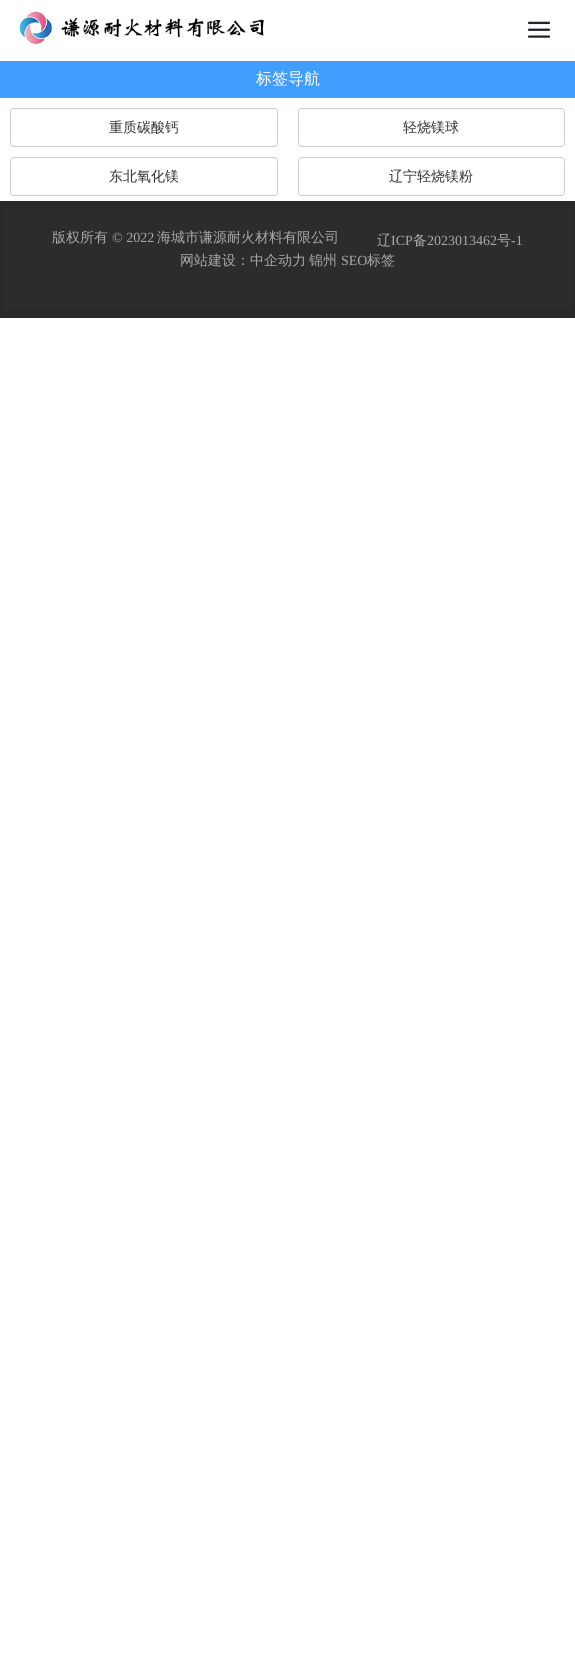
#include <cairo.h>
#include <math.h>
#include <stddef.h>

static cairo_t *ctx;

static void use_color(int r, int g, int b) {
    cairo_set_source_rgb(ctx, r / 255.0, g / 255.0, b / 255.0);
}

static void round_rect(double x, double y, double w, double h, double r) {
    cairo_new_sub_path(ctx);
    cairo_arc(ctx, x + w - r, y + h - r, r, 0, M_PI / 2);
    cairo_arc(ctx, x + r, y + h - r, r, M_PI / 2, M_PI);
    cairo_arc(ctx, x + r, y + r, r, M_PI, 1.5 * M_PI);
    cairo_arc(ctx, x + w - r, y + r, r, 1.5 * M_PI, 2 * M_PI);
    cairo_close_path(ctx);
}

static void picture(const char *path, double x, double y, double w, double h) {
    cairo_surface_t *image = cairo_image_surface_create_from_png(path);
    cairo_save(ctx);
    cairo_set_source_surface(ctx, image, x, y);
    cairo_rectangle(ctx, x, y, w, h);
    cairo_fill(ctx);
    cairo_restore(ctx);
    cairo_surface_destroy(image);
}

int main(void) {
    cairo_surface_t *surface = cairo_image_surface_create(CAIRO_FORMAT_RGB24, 575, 1668);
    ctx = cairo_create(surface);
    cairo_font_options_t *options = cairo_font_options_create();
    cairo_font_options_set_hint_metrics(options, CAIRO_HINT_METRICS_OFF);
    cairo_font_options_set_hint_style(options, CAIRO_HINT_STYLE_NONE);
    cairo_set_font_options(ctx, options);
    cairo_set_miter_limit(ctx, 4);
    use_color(255, 255, 255);
    cairo_paint(ctx);
    picture("img1.png", 19, 8, 245, 36);
    picture("img2.png", 527, 21, 24, 17);
    use_color(64, 158, 255);
    cairo_rectangle(ctx, 0, 61, 575, 37);
    cairo_fill(ctx);
    cairo_select_font_face(ctx, "WenQuanYi Zen Hei Medium", CAIRO_FONT_SLANT_NORMAL, CAIRO_FONT_WEIGHT_NORMAL);
    cairo_set_font_size(ctx, 16);
    use_color(255, 255, 255);
    cairo_move_to(ctx, 256, 84);
    cairo_show_text(ctx, "标签导航");
    round_rect(10.5, 108.5, 267, 38, 3.5);
    use_color(204, 204, 204);
    cairo_set_line_width(ctx, 1);
    cairo_stroke(ctx);
    cairo_set_font_size(ctx, 14);
    use_color(48, 49, 51);
    cairo_move_to(ctx, 109, 132);
    cairo_show_text(ctx, "重质碳酸钙");
    round_rect(298.5, 108.5, 266, 38, 3.5);
    use_color(204, 204, 204);
    cairo_stroke(ctx);
    use_color(48, 49, 51);
    cairo_move_to(ctx, 403, 132);
    cairo_show_text(ctx, "轻烧镁球");
    round_rect(10.5, 157.5, 267, 38, 3.5);
    use_color(204, 204, 204);
    cairo_stroke(ctx);
    use_color(48, 49, 51);
    cairo_move_to(ctx, 109, 181);
    cairo_show_text(ctx, "东北氧化镁");
    round_rect(298.5, 157.5, 266, 38, 3.5);
    use_color(204, 204, 204);
    cairo_stroke(ctx);
    use_color(48, 49, 51);
    cairo_move_to(ctx, 389, 181);
    cairo_show_text(ctx, "辽宁轻烧镁粉");
    use_color(41, 41, 41);
    cairo_rectangle(ctx, 0, 201, 575, 117);
    cairo_fill(ctx);
    use_color(44, 44, 44);
    cairo_rectangle(ctx, 3, 209, 569, 101);
    cairo_fill(ctx);
    use_color(169, 169, 169);
    cairo_move_to(ctx, 52, 242);
    cairo_show_text(ctx, "版权所有");
    cairo_select_font_face(ctx, "Liberation Serif", CAIRO_FONT_SLANT_NORMAL, CAIRO_FONT_WEIGHT_NORMAL);
    cairo_move_to(ctx, 112, 242);
    cairo_show_text(ctx, "© 2022");
    cairo_select_font_face(ctx, "WenQuanYi Zen Hei Medium", CAIRO_FONT_SLANT_NORMAL, CAIRO_FONT_WEIGHT_NORMAL);
    cairo_move_to(ctx, 157, 242);
    cairo_show_text(ctx, "海城市谦源耐火材料有限公司");
    cairo_move_to(ctx, 377, 245);
    cairo_show_text(ctx, "辽");
    cairo_select_font_face(ctx, "Liberation Serif", CAIRO_FONT_SLANT_NORMAL, CAIRO_FONT_WEIGHT_NORMAL);
    cairo_move_to(ctx, 391, 245);
    cairo_show_text(ctx, "ICP");
    cairo_select_font_face(ctx, "WenQuanYi Zen Hei Medium", CAIRO_FONT_SLANT_NORMAL, CAIRO_FONT_WEIGHT_NORMAL);
    cairo_move_to(ctx, 413, 245);
    cairo_show_text(ctx, "备");
    cairo_select_font_face(ctx, "Liberation Serif", CAIRO_FONT_SLANT_NORMAL, CAIRO_FONT_WEIGHT_NORMAL);
    cairo_move_to(ctx, 427, 245);
    cairo_show_text(ctx, "2023013462");
    cairo_select_font_face(ctx, "WenQuanYi Zen Hei Medium", CAIRO_FONT_SLANT_NORMAL, CAIRO_FONT_WEIGHT_NORMAL);
    cairo_move_to(ctx, 497, 245);
    cairo_show_text(ctx, "号");
    cairo_select_font_face(ctx, "Liberation Serif", CAIRO_FONT_SLANT_NORMAL, CAIRO_FONT_WEIGHT_NORMAL);
    cairo_move_to(ctx, 511, 245);
    cairo_show_text(ctx, "-1");
    cairo_select_font_face(ctx, "WenQuanYi Zen Hei Medium", CAIRO_FONT_SLANT_NORMAL, CAIRO_FONT_WEIGHT_NORMAL);
    cairo_move_to(ctx, 180, 265);
    cairo_show_text(ctx, "网站建设：中企动力");
    cairo_move_to(ctx, 309, 265);
    cairo_show_text(ctx, "锦州");
    cairo_select_font_face(ctx, "Liberation Serif", CAIRO_FONT_SLANT_NORMAL, CAIRO_FONT_WEIGHT_NORMAL);
    cairo_move_to(ctx, 341, 265);
    cairo_show_text(ctx, "SEO");
    cairo_select_font_face(ctx, "WenQuanYi Zen Hei Medium", CAIRO_FONT_SLANT_NORMAL, CAIRO_FONT_WEIGHT_NORMAL);
    cairo_move_to(ctx, 367, 265);
    cairo_show_text(ctx, "标签");
    cairo_surface_write_to_png(surface, "result.png");
    cairo_font_options_destroy(options);
    cairo_destroy(ctx);
    cairo_surface_destroy(surface);
    return 0;
}
